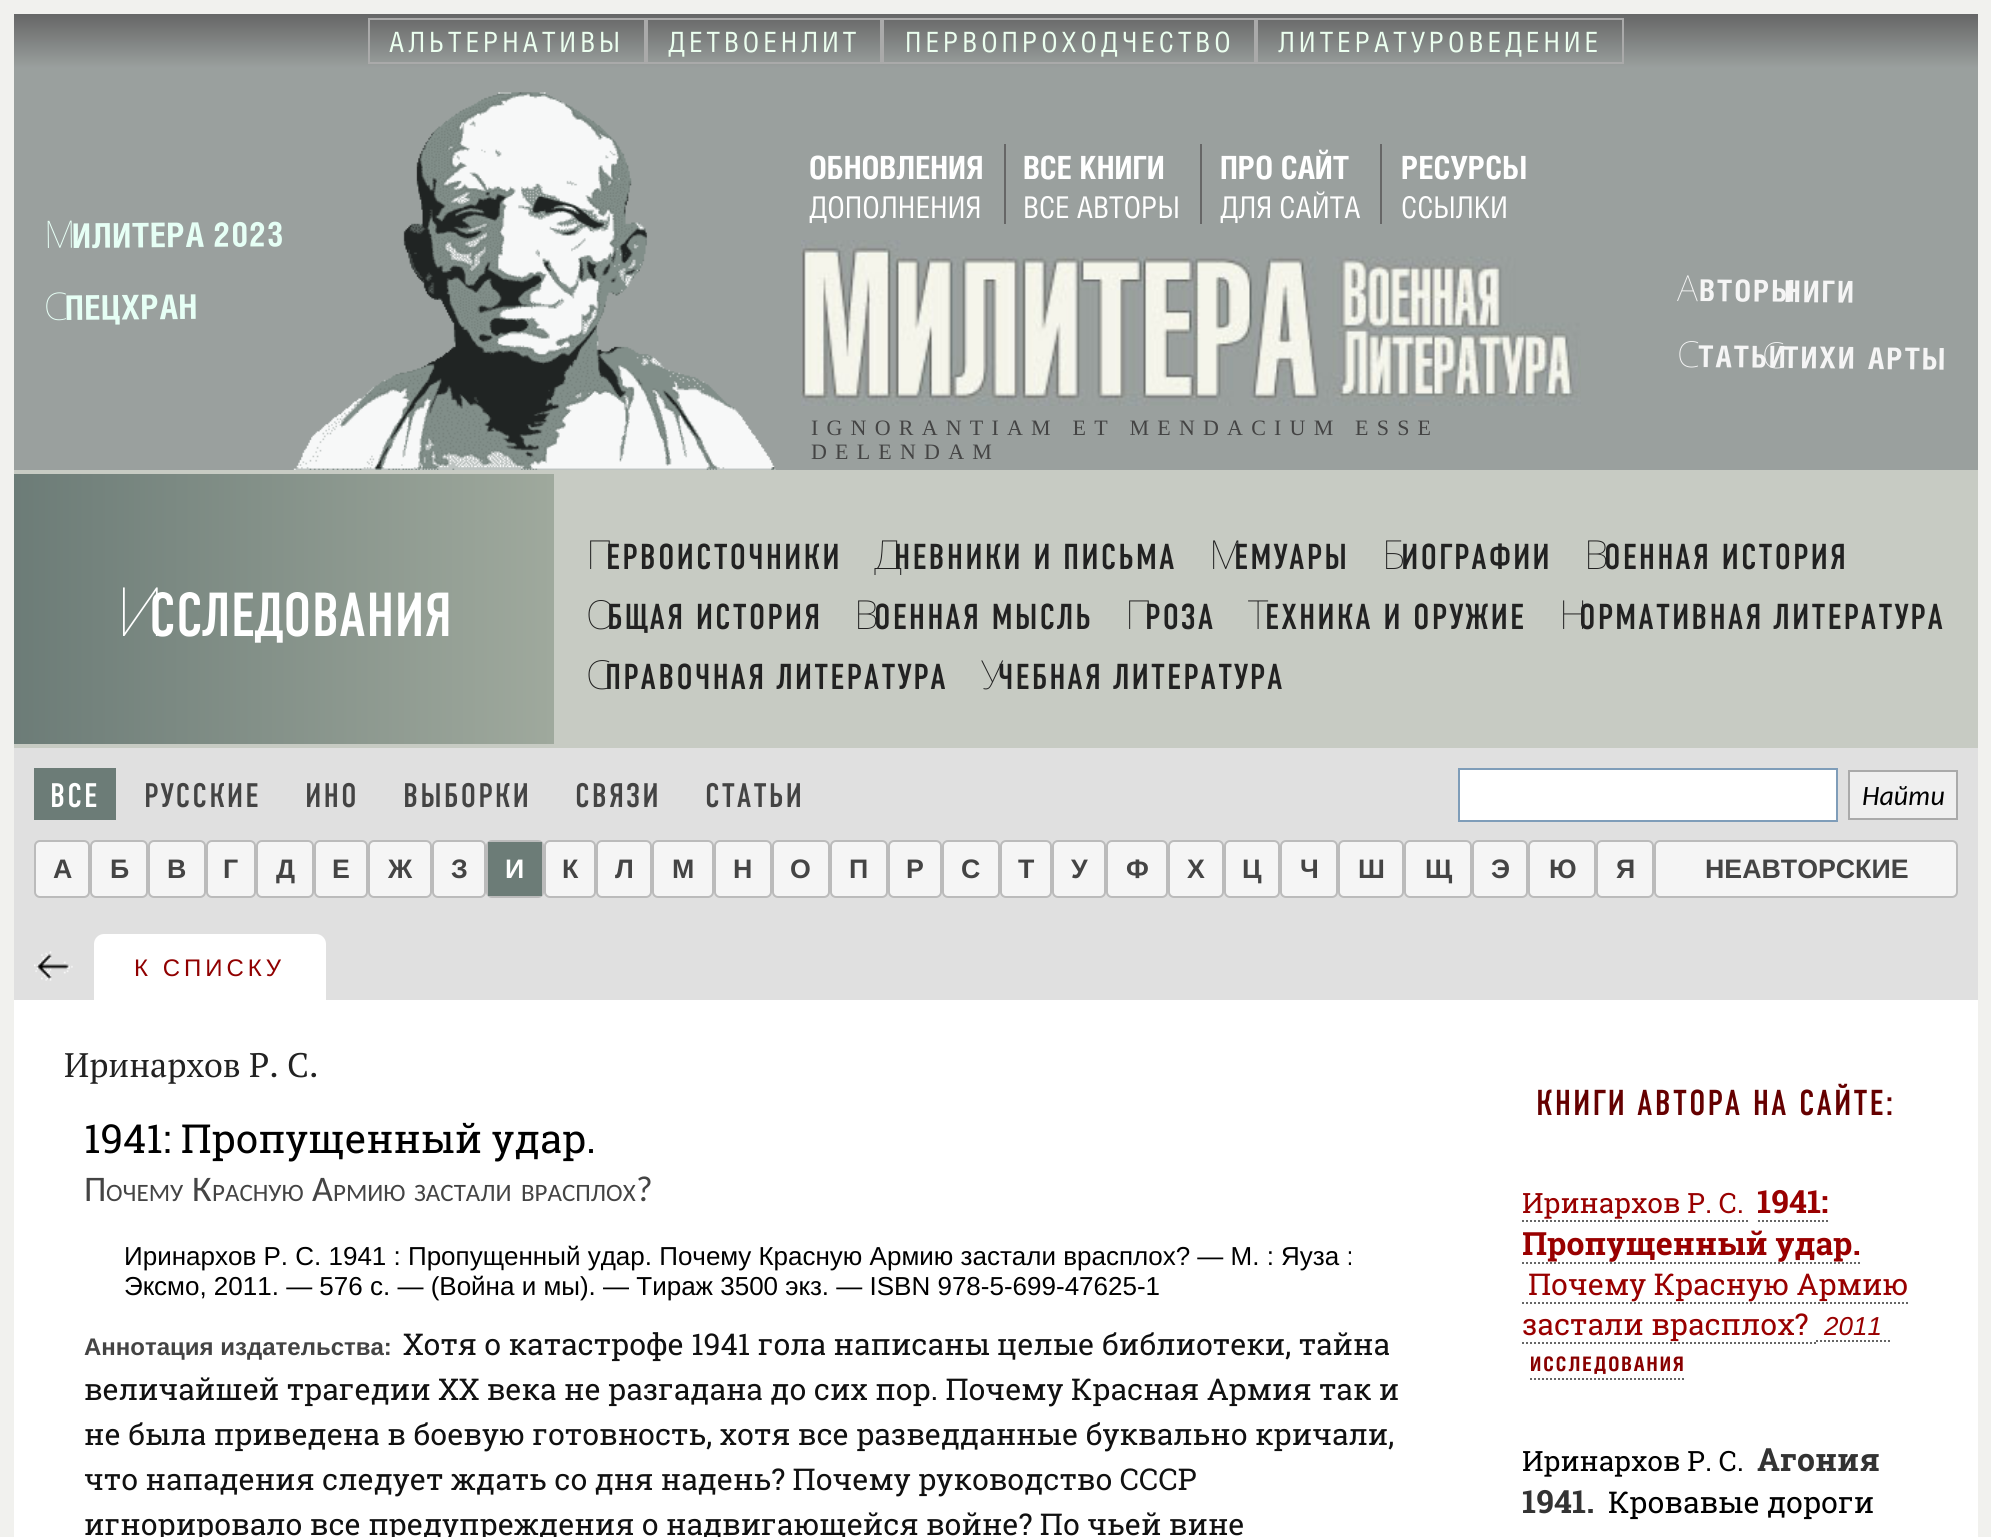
#include <cairo.h>
#include <math.h>
#include <stddef.h>

static cairo_t *ctx;

static void use_color(int r, int g, int b) {
    cairo_set_source_rgb(ctx, r / 255.0, g / 255.0, b / 255.0);
}

static void spaced_text(double x, double y, const char *s, double letter, double word) {
    cairo_move_to(ctx, x, y);
    while (*s) {
        char ch[5] = {0};
        int n = 0;
        do ch[n++] = *s++; while ((*s & 0xC0) == 0x80);
        cairo_show_text(ctx, ch);
        cairo_rel_move_to(ctx, letter + word * (*ch == ' '), 0);
    }
}

static void round_rect(double x, double y, double w, double h, double r) {
    cairo_new_sub_path(ctx);
    cairo_arc(ctx, x + w - r, y + h - r, r, 0, M_PI / 2);
    cairo_arc(ctx, x + r, y + h - r, r, M_PI / 2, M_PI);
    cairo_arc(ctx, x + r, y + r, r, M_PI, 1.5 * M_PI);
    cairo_arc(ctx, x + w - r, y + r, r, 1.5 * M_PI, 2 * M_PI);
    cairo_close_path(ctx);
}

static void picture(const char *path, double x, double y, double w, double h) {
    cairo_surface_t *image = cairo_image_surface_create_from_png(path);
    cairo_save(ctx);
    cairo_set_source_surface(ctx, image, x, y);
    cairo_rectangle(ctx, x, y, w, h);
    cairo_fill(ctx);
    cairo_restore(ctx);
    cairo_surface_destroy(image);
}

int main(void) {
    cairo_surface_t *surface = cairo_image_surface_create(CAIRO_FORMAT_RGB24, 1991, 1537);
    ctx = cairo_create(surface);
    cairo_font_options_t *options = cairo_font_options_create();
    cairo_font_options_set_hint_metrics(options, CAIRO_HINT_METRICS_OFF);
    cairo_font_options_set_hint_style(options, CAIRO_HINT_STYLE_NONE);
    cairo_set_font_options(ctx, options);
    cairo_set_miter_limit(ctx, 4);
    cairo_pattern_t *gradient;
    use_color(224, 224, 224);
    cairo_paint(ctx);
    cairo_rectangle(ctx, 7, 7, 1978, 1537);
    use_color(241, 241, 238);
    cairo_set_line_width(ctx, 14);
    cairo_stroke(ctx);
    gradient = cairo_pattern_create_linear(996, 68, 996, 14);
    cairo_pattern_add_color_stop_rgba(gradient, 0, 0.604, 0.627, 0.62, 1);
    cairo_pattern_add_color_stop_rgba(gradient, 1, 0.4, 0.4, 0.4, 1);
    cairo_set_source(ctx, gradient);
    cairo_pattern_destroy(gradient);
    cairo_rectangle(ctx, 14, 14, 1964, 54);
    cairo_fill(ctx);
    cairo_rectangle(ctx, 369, 19, 276, 44);
    use_color(170, 170, 170);
    cairo_set_line_width(ctx, 2);
    cairo_stroke(ctx);
    cairo_select_font_face(ctx, "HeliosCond", CAIRO_FONT_SLANT_NORMAL, CAIRO_FONT_WEIGHT_NORMAL);
    cairo_set_font_size(ctx, 28);
    use_color(235, 255, 239);
    spaced_text(389, 52, "АЛЬТЕРНАТИВЫ", 4, 0);
    cairo_rectangle(ctx, 647, 19, 234, 44);
    use_color(170, 170, 170);
    cairo_stroke(ctx);
    use_color(235, 255, 239);
    spaced_text(668, 52, "ДЕТВОЕНЛИТ", 4, 0);
    cairo_rectangle(ctx, 883, 19, 372, 44);
    use_color(170, 170, 170);
    cairo_stroke(ctx);
    use_color(235, 255, 239);
    spaced_text(905, 52, "ПЕРВОПРОХОДЧЕСТВО", 4, 0);
    cairo_rectangle(ctx, 1257, 19, 366, 44);
    use_color(170, 170, 170);
    cairo_stroke(ctx);
    use_color(235, 255, 239);
    spaced_text(1278, 52, "ЛИТЕРАТУРОВЕДЕНИЕ", 4, 0);
    use_color(154, 160, 158);
    cairo_rectangle(ctx, 14, 68, 1964, 402);
    cairo_fill(ctx);
    cairo_select_font_face(ctx, "Noto Sans Thin", CAIRO_FONT_SLANT_NORMAL, CAIRO_FONT_WEIGHT_NORMAL);
    cairo_set_font_size(ctx, 38);
    use_color(230, 255, 245);
    cairo_save(ctx);
    cairo_translate(ctx, 44, 248);
    cairo_rotate(ctx, -0.5 * M_PI / 180);
    spaced_text(0, 0, "М", 0.6, 0);
    cairo_restore(ctx);
    cairo_select_font_face(ctx, "HeliosCond", CAIRO_FONT_SLANT_NORMAL, CAIRO_FONT_WEIGHT_BOLD);
    cairo_set_font_size(ctx, 34);
    cairo_save(ctx);
    cairo_translate(ctx, 72, 248);
    cairo_rotate(ctx, -0.5 * M_PI / 180);
    spaced_text(0, 0, "ИЛИТЕРА 2023", 0.6, 0);
    cairo_restore(ctx);
    cairo_select_font_face(ctx, "Noto Sans Thin", CAIRO_FONT_SLANT_NORMAL, CAIRO_FONT_WEIGHT_NORMAL);
    cairo_set_font_size(ctx, 38);
    cairo_save(ctx);
    cairo_translate(ctx, 44, 320);
    cairo_rotate(ctx, -0.5 * M_PI / 180);
    spaced_text(0, 0, "С", 0.6, 0);
    cairo_restore(ctx);
    cairo_select_font_face(ctx, "HeliosCond", CAIRO_FONT_SLANT_NORMAL, CAIRO_FONT_WEIGHT_BOLD);
    cairo_set_font_size(ctx, 34);
    cairo_save(ctx);
    cairo_translate(ctx, 65, 320);
    cairo_rotate(ctx, -0.5 * M_PI / 180);
    spaced_text(0, 0, "ПЕЦХРАН", 0.6, 0);
    cairo_restore(ctx);
    picture("img1.png", 293, 92, 483, 378);
    use_color(102, 102, 102);
    cairo_rectangle(ctx, 1004, 144, 2, 80);
    cairo_fill(ctx);
    cairo_set_font_size(ctx, 32);
    use_color(255, 255, 255);
    cairo_move_to(ctx, 809, 179);
    cairo_show_text(ctx, "ОБНОВЛЕНИЯ");
    cairo_select_font_face(ctx, "HeliosCond", CAIRO_FONT_SLANT_NORMAL, CAIRO_FONT_WEIGHT_NORMAL);
    cairo_set_font_size(ctx, 30);
    cairo_move_to(ctx, 809, 218);
    cairo_show_text(ctx, "ДОПОЛНЕНИЯ");
    use_color(102, 102, 102);
    cairo_rectangle(ctx, 1200, 144, 2, 80);
    cairo_fill(ctx);
    cairo_select_font_face(ctx, "HeliosCond", CAIRO_FONT_SLANT_NORMAL, CAIRO_FONT_WEIGHT_BOLD);
    cairo_set_font_size(ctx, 32);
    use_color(255, 255, 255);
    cairo_move_to(ctx, 1023, 179);
    cairo_show_text(ctx, "ВСЕ КНИГИ");
    cairo_select_font_face(ctx, "HeliosCond", CAIRO_FONT_SLANT_NORMAL, CAIRO_FONT_WEIGHT_NORMAL);
    cairo_set_font_size(ctx, 30);
    cairo_move_to(ctx, 1023, 218);
    cairo_show_text(ctx, "ВСЕ АВТОРЫ");
    use_color(102, 102, 102);
    cairo_rectangle(ctx, 1380, 144, 2, 80);
    cairo_fill(ctx);
    cairo_select_font_face(ctx, "HeliosCond", CAIRO_FONT_SLANT_NORMAL, CAIRO_FONT_WEIGHT_BOLD);
    cairo_set_font_size(ctx, 32);
    use_color(255, 255, 255);
    cairo_move_to(ctx, 1220, 179);
    cairo_show_text(ctx, "ПРО САЙТ");
    cairo_select_font_face(ctx, "HeliosCond", CAIRO_FONT_SLANT_NORMAL, CAIRO_FONT_WEIGHT_NORMAL);
    cairo_set_font_size(ctx, 30);
    cairo_move_to(ctx, 1220, 218);
    cairo_show_text(ctx, "ДЛЯ САЙТА");
    cairo_select_font_face(ctx, "HeliosCond", CAIRO_FONT_SLANT_NORMAL, CAIRO_FONT_WEIGHT_BOLD);
    cairo_set_font_size(ctx, 32);
    cairo_move_to(ctx, 1401, 179);
    cairo_show_text(ctx, "РЕСУРСЫ");
    cairo_select_font_face(ctx, "HeliosCond", CAIRO_FONT_SLANT_NORMAL, CAIRO_FONT_WEIGHT_NORMAL);
    cairo_set_font_size(ctx, 30);
    cairo_move_to(ctx, 1401, 218);
    cairo_show_text(ctx, "ССЫЛКИ");
    picture("img2.png", 801, 240, 780, 166);
    cairo_select_font_face(ctx, "Liberation Serif", CAIRO_FONT_SLANT_NORMAL, CAIRO_FONT_WEIGHT_NORMAL);
    cairo_set_font_size(ctx, 22);
    use_color(68, 68, 68);
    spaced_text(811, 435, "IGNORANTIAM ET MENDACIUM ESSE", 8.2, 0);
    spaced_text(811, 459, "DELENDAM", 8.2, 0);
    cairo_select_font_face(ctx, "Noto Sans Thin", CAIRO_FONT_SLANT_NORMAL, CAIRO_FONT_WEIGHT_NORMAL);
    cairo_set_font_size(ctx, 36);
    use_color(245, 245, 245);
    cairo_save(ctx);
    cairo_translate(ctx, 1677, 301);
    cairo_rotate(ctx, 0.5 * M_PI / 180);
    spaced_text(0, 0, "А", 2, 0);
    cairo_restore(ctx);
    cairo_select_font_face(ctx, "HeliosCond", CAIRO_FONT_SLANT_NORMAL, CAIRO_FONT_WEIGHT_BOLD);
    cairo_set_font_size(ctx, 30);
    cairo_save(ctx);
    cairo_translate(ctx, 1699, 301);
    cairo_rotate(ctx, 0.5 * M_PI / 180);
    spaced_text(0, 0, "ВТОРЫ", 2, 0);
    cairo_restore(ctx);
    cairo_save(ctx);
    cairo_translate(ctx, 1784, 302);
    cairo_rotate(ctx, 0.5 * M_PI / 180);
    spaced_text(0, 0, "НИГИ", 2, 0);
    cairo_restore(ctx);
    cairo_select_font_face(ctx, "Noto Sans Thin", CAIRO_FONT_SLANT_NORMAL, CAIRO_FONT_WEIGHT_NORMAL);
    cairo_set_font_size(ctx, 36);
    cairo_save(ctx);
    cairo_translate(ctx, 1677, 367);
    cairo_rotate(ctx, 0.5 * M_PI / 180);
    spaced_text(0, 0, "С", 2, 0);
    cairo_restore(ctx);
    cairo_select_font_face(ctx, "HeliosCond", CAIRO_FONT_SLANT_NORMAL, CAIRO_FONT_WEIGHT_BOLD);
    cairo_set_font_size(ctx, 30);
    cairo_save(ctx);
    cairo_translate(ctx, 1698, 367);
    cairo_rotate(ctx, 0.5 * M_PI / 180);
    spaced_text(0, 0, "ТАТЬИ", 2, 0);
    cairo_restore(ctx);
    cairo_select_font_face(ctx, "Noto Sans Thin", CAIRO_FONT_SLANT_NORMAL, CAIRO_FONT_WEIGHT_NORMAL);
    cairo_set_font_size(ctx, 36);
    cairo_save(ctx);
    cairo_translate(ctx, 1762, 368);
    cairo_rotate(ctx, 0.5 * M_PI / 180);
    spaced_text(0, 0, "С", 2, 0);
    cairo_restore(ctx);
    cairo_select_font_face(ctx, "HeliosCond", CAIRO_FONT_SLANT_NORMAL, CAIRO_FONT_WEIGHT_BOLD);
    cairo_set_font_size(ctx, 30);
    cairo_save(ctx);
    cairo_translate(ctx, 1783, 368);
    cairo_rotate(ctx, 0.5 * M_PI / 180);
    spaced_text(0, 0, "ТИХИ", 2, 0);
    cairo_restore(ctx);
    cairo_save(ctx);
    cairo_translate(ctx, 1868, 369);
    cairo_rotate(ctx, 0.5 * M_PI / 180);
    spaced_text(0, 0, "АРТЫ", 2, 0);
    cairo_restore(ctx);
    use_color(199, 203, 195);
    cairo_rectangle(ctx, 14, 470, 1964, 278);
    cairo_fill(ctx);
    gradient = cairo_pattern_create_linear(14, 609, 554, 609);
    cairo_pattern_add_color_stop_rgba(gradient, 0, 0.424, 0.486, 0.467, 1);
    cairo_pattern_add_color_stop_rgba(gradient, 1, 0.624, 0.663, 0.616, 1);
    cairo_set_source(ctx, gradient);
    cairo_pattern_destroy(gradient);
    cairo_rectangle(ctx, 14, 474, 540, 270);
    cairo_fill(ctx);
    cairo_select_font_face(ctx, "Noto Sans Thin", CAIRO_FONT_SLANT_NORMAL, CAIRO_FONT_WEIGHT_NORMAL);
    cairo_set_font_size(ctx, 68);
    use_color(255, 255, 255);
    cairo_move_to(ctx, 116, 636);
    cairo_show_text(ctx, "И");
    cairo_select_font_face(ctx, "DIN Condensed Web", CAIRO_FONT_SLANT_NORMAL, CAIRO_FONT_WEIGHT_NORMAL);
    cairo_set_font_size(ctx, 62);
    cairo_move_to(ctx, 149, 636);
    cairo_show_text(ctx, "ССЛЕДОВАНИЯ");
    cairo_select_font_face(ctx, "Noto Sans Thin", CAIRO_FONT_SLANT_NORMAL, CAIRO_FONT_WEIGHT_NORMAL);
    cairo_set_font_size(ctx, 40);
    use_color(34, 34, 34);
    spaced_text(586, 569, "П", 2, 0);
    cairo_select_font_face(ctx, "DIN Condensed Web", CAIRO_FONT_SLANT_NORMAL, CAIRO_FONT_WEIGHT_NORMAL);
    cairo_set_font_size(ctx, 36);
    spaced_text(606, 569, "ЕРВОИСТОЧНИКИ", 2, 0);
    cairo_select_font_face(ctx, "Noto Sans Thin", CAIRO_FONT_SLANT_NORMAL, CAIRO_FONT_WEIGHT_NORMAL);
    cairo_set_font_size(ctx, 40);
    spaced_text(874, 569, "Д", 2, 0);
    cairo_select_font_face(ctx, "DIN Condensed Web", CAIRO_FONT_SLANT_NORMAL, CAIRO_FONT_WEIGHT_NORMAL);
    cairo_set_font_size(ctx, 36);
    spaced_text(894, 569, "НЕВНИКИ И ПИСЬМА", 2, 0);
    cairo_select_font_face(ctx, "Noto Sans Thin", CAIRO_FONT_SLANT_NORMAL, CAIRO_FONT_WEIGHT_NORMAL);
    cairo_set_font_size(ctx, 40);
    spaced_text(1209, 569, "М", 2, 0);
    cairo_select_font_face(ctx, "DIN Condensed Web", CAIRO_FONT_SLANT_NORMAL, CAIRO_FONT_WEIGHT_NORMAL);
    cairo_set_font_size(ctx, 36);
    spaced_text(1234, 569, "ЕМУАРЫ", 2, 0);
    cairo_select_font_face(ctx, "Noto Sans Thin", CAIRO_FONT_SLANT_NORMAL, CAIRO_FONT_WEIGHT_NORMAL);
    cairo_set_font_size(ctx, 40);
    spaced_text(1382, 569, "Б", 2, 0);
    cairo_select_font_face(ctx, "DIN Condensed Web", CAIRO_FONT_SLANT_NORMAL, CAIRO_FONT_WEIGHT_NORMAL);
    cairo_set_font_size(ctx, 36);
    spaced_text(1401, 569, "ИОГРАФИИ", 2, 0);
    cairo_select_font_face(ctx, "Noto Sans Thin", CAIRO_FONT_SLANT_NORMAL, CAIRO_FONT_WEIGHT_NORMAL);
    cairo_set_font_size(ctx, 40);
    spaced_text(1584, 569, "В", 2, 0);
    cairo_select_font_face(ctx, "DIN Condensed Web", CAIRO_FONT_SLANT_NORMAL, CAIRO_FONT_WEIGHT_NORMAL);
    cairo_set_font_size(ctx, 36);
    spaced_text(1604, 569, "ОЕННАЯ ИСТОРИЯ", 2, 0);
    cairo_select_font_face(ctx, "Noto Sans Thin", CAIRO_FONT_SLANT_NORMAL, CAIRO_FONT_WEIGHT_NORMAL);
    cairo_set_font_size(ctx, 40);
    spaced_text(586, 629, "О", 2, 0);
    cairo_select_font_face(ctx, "DIN Condensed Web", CAIRO_FONT_SLANT_NORMAL, CAIRO_FONT_WEIGHT_NORMAL);
    cairo_set_font_size(ctx, 36);
    spaced_text(607, 629, "БЩАЯ ИСТОРИЯ", 2, 0);
    cairo_select_font_face(ctx, "Noto Sans Thin", CAIRO_FONT_SLANT_NORMAL, CAIRO_FONT_WEIGHT_NORMAL);
    cairo_set_font_size(ctx, 40);
    spaced_text(854, 629, "В", 2, 0);
    cairo_select_font_face(ctx, "DIN Condensed Web", CAIRO_FONT_SLANT_NORMAL, CAIRO_FONT_WEIGHT_NORMAL);
    cairo_set_font_size(ctx, 36);
    spaced_text(874, 629, "ОЕННАЯ МЫСЛЬ", 2, 0);
    cairo_select_font_face(ctx, "Noto Sans Thin", CAIRO_FONT_SLANT_NORMAL, CAIRO_FONT_WEIGHT_NORMAL);
    cairo_set_font_size(ctx, 40);
    spaced_text(1125, 629, "П", 2, 0);
    cairo_select_font_face(ctx, "DIN Condensed Web", CAIRO_FONT_SLANT_NORMAL, CAIRO_FONT_WEIGHT_NORMAL);
    cairo_set_font_size(ctx, 36);
    spaced_text(1145, 629, "РОЗА", 2, 0);
    cairo_select_font_face(ctx, "Noto Sans Thin", CAIRO_FONT_SLANT_NORMAL, CAIRO_FONT_WEIGHT_NORMAL);
    cairo_set_font_size(ctx, 40);
    spaced_text(1248, 629, "Т", 2, 0);
    cairo_select_font_face(ctx, "DIN Condensed Web", CAIRO_FONT_SLANT_NORMAL, CAIRO_FONT_WEIGHT_NORMAL);
    cairo_set_font_size(ctx, 36);
    spaced_text(1265, 629, "ЕХНИКА И ОРУЖИЕ", 2, 0);
    cairo_select_font_face(ctx, "Noto Sans Thin", CAIRO_FONT_SLANT_NORMAL, CAIRO_FONT_WEIGHT_NORMAL);
    cairo_set_font_size(ctx, 40);
    spaced_text(1559, 629, "Н", 2, 0);
    cairo_select_font_face(ctx, "DIN Condensed Web", CAIRO_FONT_SLANT_NORMAL, CAIRO_FONT_WEIGHT_NORMAL);
    cairo_set_font_size(ctx, 36);
    spaced_text(1579, 629, "ОРМАТИВНАЯ ЛИТЕРАТУРА", 2, 0);
    cairo_select_font_face(ctx, "Noto Sans Thin", CAIRO_FONT_SLANT_NORMAL, CAIRO_FONT_WEIGHT_NORMAL);
    cairo_set_font_size(ctx, 40);
    spaced_text(586, 689, "С", 2, 0);
    cairo_select_font_face(ctx, "DIN Condensed Web", CAIRO_FONT_SLANT_NORMAL, CAIRO_FONT_WEIGHT_NORMAL);
    cairo_set_font_size(ctx, 36);
    spaced_text(605, 689, "ПРАВОЧНАЯ ЛИТЕРАТУРА", 2, 0);
    cairo_select_font_face(ctx, "Noto Sans Thin", CAIRO_FONT_SLANT_NORMAL, CAIRO_FONT_WEIGHT_NORMAL);
    cairo_set_font_size(ctx, 40);
    spaced_text(981, 689, "У", 2, 0);
    cairo_select_font_face(ctx, "DIN Condensed Web", CAIRO_FONT_SLANT_NORMAL, CAIRO_FONT_WEIGHT_NORMAL);
    cairo_set_font_size(ctx, 36);
    spaced_text(998, 689, "ЧЕБНАЯ ЛИТЕРАТУРА", 2, 0);
    use_color(108, 124, 119);
    cairo_rectangle(ctx, 34, 768, 82, 52);
    cairo_fill(ctx);
    cairo_set_font_size(ctx, 34);
    use_color(255, 255, 255);
    spaced_text(50, 807, "ВСЕ", 2, 0);
    use_color(68, 68, 68);
    spaced_text(144, 807, "РУССКИЕ", 2, 0);
    spaced_text(305, 807, "ИНО", 2, 0);
    spaced_text(403, 807, "ВЫБОРКИ", 2, 0);
    spaced_text(575, 807, "СВЯЗИ", 2, 0);
    spaced_text(705, 807, "СТАТЬИ", 2, 0);
    use_color(255, 255, 255);
    cairo_rectangle(ctx, 1459, 769, 378, 52);
    cairo_fill_preserve(ctx);
    use_color(127, 157, 185);
    cairo_stroke(ctx);
    use_color(239, 239, 239);
    cairo_rectangle(ctx, 1849, 771, 108, 48);
    cairo_fill_preserve(ctx);
    use_color(170, 170, 170);
    cairo_stroke(ctx);
    cairo_select_font_face(ctx, "Carlito", CAIRO_FONT_SLANT_ITALIC, CAIRO_FONT_WEIGHT_NORMAL);
    cairo_set_font_size(ctx, 28);
    use_color(0, 0, 0);
    cairo_move_to(ctx, 1862, 805);
    cairo_show_text(ctx, "Найти");
    use_color(245, 245, 245);
    round_rect(35, 841, 54, 56, 5);
    cairo_fill_preserve(ctx);
    use_color(187, 187, 187);
    cairo_stroke(ctx);
    cairo_select_font_face(ctx, "Liberation Sans", CAIRO_FONT_SLANT_NORMAL, CAIRO_FONT_WEIGHT_BOLD);
    cairo_set_font_size(ctx, 26.75);
    use_color(68, 68, 68);
    cairo_move_to(ctx, 53, 878);
    cairo_show_text(ctx, "А");
    use_color(245, 245, 245);
    round_rect(91, 841, 56, 56, 5);
    cairo_fill_preserve(ctx);
    use_color(187, 187, 187);
    cairo_stroke(ctx);
    use_color(68, 68, 68);
    cairo_move_to(ctx, 110, 878);
    cairo_show_text(ctx, "Б");
    use_color(245, 245, 245);
    round_rect(149, 841, 56, 56, 5);
    cairo_fill_preserve(ctx);
    use_color(187, 187, 187);
    cairo_stroke(ctx);
    use_color(68, 68, 68);
    cairo_move_to(ctx, 167, 878);
    cairo_show_text(ctx, "В");
    use_color(245, 245, 245);
    round_rect(207, 841, 48, 56, 5);
    cairo_fill_preserve(ctx);
    use_color(187, 187, 187);
    cairo_stroke(ctx);
    use_color(68, 68, 68);
    cairo_move_to(ctx, 223, 878);
    cairo_show_text(ctx, "Г");
    use_color(245, 245, 245);
    round_rect(257, 841, 56, 56, 5);
    cairo_fill_preserve(ctx);
    use_color(187, 187, 187);
    cairo_stroke(ctx);
    use_color(68, 68, 68);
    cairo_move_to(ctx, 276, 878);
    cairo_show_text(ctx, "Д");
    use_color(245, 245, 245);
    round_rect(315, 841, 52, 56, 5);
    cairo_fill_preserve(ctx);
    use_color(187, 187, 187);
    cairo_stroke(ctx);
    use_color(68, 68, 68);
    cairo_move_to(ctx, 332, 878);
    cairo_show_text(ctx, "Е");
    use_color(245, 245, 245);
    round_rect(369, 841, 62, 56, 5);
    cairo_fill_preserve(ctx);
    use_color(187, 187, 187);
    cairo_stroke(ctx);
    use_color(68, 68, 68);
    cairo_move_to(ctx, 388, 878);
    cairo_show_text(ctx, "Ж");
    use_color(245, 245, 245);
    round_rect(433, 841, 52, 56, 5);
    cairo_fill_preserve(ctx);
    use_color(187, 187, 187);
    cairo_stroke(ctx);
    use_color(68, 68, 68);
    cairo_move_to(ctx, 451, 878);
    cairo_show_text(ctx, "З");
    round_rect(487, 841, 56, 56, 5);
    use_color(187, 187, 187);
    cairo_stroke(ctx);
    use_color(108, 124, 119);
    cairo_rectangle(ctx, 488, 842, 54, 54);
    cairo_fill(ctx);
    use_color(255, 255, 255);
    cairo_move_to(ctx, 505, 878);
    cairo_show_text(ctx, "И");
    use_color(245, 245, 245);
    round_rect(545, 841, 50, 56, 5);
    cairo_fill_preserve(ctx);
    use_color(187, 187, 187);
    cairo_stroke(ctx);
    use_color(68, 68, 68);
    cairo_move_to(ctx, 562, 878);
    cairo_show_text(ctx, "К");
    use_color(245, 245, 245);
    round_rect(597, 841, 54, 56, 5);
    cairo_fill_preserve(ctx);
    use_color(187, 187, 187);
    cairo_stroke(ctx);
    use_color(68, 68, 68);
    cairo_move_to(ctx, 615, 878);
    cairo_show_text(ctx, "Л");
    use_color(245, 245, 245);
    round_rect(653, 841, 60, 56, 5);
    cairo_fill_preserve(ctx);
    use_color(187, 187, 187);
    cairo_stroke(ctx);
    use_color(68, 68, 68);
    cairo_move_to(ctx, 672, 878);
    cairo_show_text(ctx, "М");
    use_color(245, 245, 245);
    round_rect(715, 841, 56, 56, 5);
    cairo_fill_preserve(ctx);
    use_color(187, 187, 187);
    cairo_stroke(ctx);
    use_color(68, 68, 68);
    cairo_move_to(ctx, 733, 878);
    cairo_show_text(ctx, "Н");
    use_color(245, 245, 245);
    round_rect(773, 841, 56, 56, 5);
    cairo_fill_preserve(ctx);
    use_color(187, 187, 187);
    cairo_stroke(ctx);
    use_color(68, 68, 68);
    cairo_move_to(ctx, 790, 878);
    cairo_show_text(ctx, "О");
    use_color(245, 245, 245);
    round_rect(831, 841, 56, 56, 5);
    cairo_fill_preserve(ctx);
    use_color(187, 187, 187);
    cairo_stroke(ctx);
    use_color(68, 68, 68);
    cairo_move_to(ctx, 849, 878);
    cairo_show_text(ctx, "П");
    use_color(245, 245, 245);
    round_rect(889, 841, 52, 56, 5);
    cairo_fill_preserve(ctx);
    use_color(187, 187, 187);
    cairo_stroke(ctx);
    use_color(68, 68, 68);
    cairo_move_to(ctx, 906, 878);
    cairo_show_text(ctx, "Р");
    use_color(245, 245, 245);
    round_rect(943, 841, 56, 56, 5);
    cairo_fill_preserve(ctx);
    use_color(187, 187, 187);
    cairo_stroke(ctx);
    use_color(68, 68, 68);
    cairo_move_to(ctx, 961, 878);
    cairo_show_text(ctx, "С");
    use_color(245, 245, 245);
    round_rect(1001, 841, 50, 56, 5);
    cairo_fill_preserve(ctx);
    use_color(187, 187, 187);
    cairo_stroke(ctx);
    use_color(68, 68, 68);
    cairo_move_to(ctx, 1018, 878);
    cairo_show_text(ctx, "Т");
    use_color(245, 245, 245);
    round_rect(1053, 841, 52, 56, 5);
    cairo_fill_preserve(ctx);
    use_color(187, 187, 187);
    cairo_stroke(ctx);
    use_color(68, 68, 68);
    cairo_move_to(ctx, 1071, 878);
    cairo_show_text(ctx, "У");
    use_color(245, 245, 245);
    round_rect(1107, 841, 60, 56, 5);
    cairo_fill_preserve(ctx);
    use_color(187, 187, 187);
    cairo_stroke(ctx);
    use_color(68, 68, 68);
    cairo_move_to(ctx, 1126, 878);
    cairo_show_text(ctx, "Ф");
    use_color(245, 245, 245);
    round_rect(1169, 841, 54, 56, 5);
    cairo_fill_preserve(ctx);
    use_color(187, 187, 187);
    cairo_stroke(ctx);
    use_color(68, 68, 68);
    cairo_move_to(ctx, 1187, 878);
    cairo_show_text(ctx, "Х");
    use_color(245, 245, 245);
    round_rect(1225, 841, 54, 56, 5);
    cairo_fill_preserve(ctx);
    use_color(187, 187, 187);
    cairo_stroke(ctx);
    use_color(68, 68, 68);
    cairo_move_to(ctx, 1242, 878);
    cairo_show_text(ctx, "Ц");
    use_color(245, 245, 245);
    round_rect(1281, 841, 56, 56, 5);
    cairo_fill_preserve(ctx);
    use_color(187, 187, 187);
    cairo_stroke(ctx);
    use_color(68, 68, 68);
    cairo_move_to(ctx, 1300, 878);
    cairo_show_text(ctx, "Ч");
    use_color(245, 245, 245);
    round_rect(1339, 841, 64, 56, 5);
    cairo_fill_preserve(ctx);
    use_color(187, 187, 187);
    cairo_stroke(ctx);
    use_color(68, 68, 68);
    cairo_move_to(ctx, 1358, 878);
    cairo_show_text(ctx, "Ш");
    use_color(245, 245, 245);
    round_rect(1405, 841, 66, 56, 5);
    cairo_fill_preserve(ctx);
    use_color(187, 187, 187);
    cairo_stroke(ctx);
    use_color(68, 68, 68);
    cairo_move_to(ctx, 1425, 878);
    cairo_show_text(ctx, "Щ");
    use_color(245, 245, 245);
    round_rect(1473, 841, 54, 56, 5);
    cairo_fill_preserve(ctx);
    use_color(187, 187, 187);
    cairo_stroke(ctx);
    use_color(68, 68, 68);
    cairo_move_to(ctx, 1491, 878);
    cairo_show_text(ctx, "Э");
    use_color(245, 245, 245);
    round_rect(1529, 841, 66, 56, 5);
    cairo_fill_preserve(ctx);
    use_color(187, 187, 187);
    cairo_stroke(ctx);
    use_color(68, 68, 68);
    cairo_move_to(ctx, 1549, 878);
    cairo_show_text(ctx, "Ю");
    use_color(245, 245, 245);
    round_rect(1597, 841, 56, 56, 5);
    cairo_fill_preserve(ctx);
    use_color(187, 187, 187);
    cairo_stroke(ctx);
    use_color(68, 68, 68);
    cairo_move_to(ctx, 1616, 878);
    cairo_show_text(ctx, "Я");
    use_color(245, 245, 245);
    round_rect(1655, 841, 302, 56, 5);
    cairo_fill_preserve(ctx);
    use_color(187, 187, 187);
    cairo_stroke(ctx);
    use_color(68, 68, 68);
    cairo_move_to(ctx, 1705, 878);
    cairo_show_text(ctx, "НЕАВТОРСКИЕ");
    picture("img3.png", 34, 951, 39, 30);
    use_color(255, 255, 255);
    cairo_rectangle(ctx, 14, 1000, 1964, 537);
    cairo_fill(ctx);
    cairo_new_path(ctx);
    cairo_move_to(ctx, 104, 934);
    cairo_line_to(ctx, 316, 934);
    cairo_curve_to(ctx, 321.5, 934, 326, 938.5, 326, 944);
    cairo_line_to(ctx, 326, 1002);
    cairo_line_to(ctx, 94, 1002);
    cairo_line_to(ctx, 94, 944);
    cairo_curve_to(ctx, 94, 938.5, 98.5, 934, 104, 934);
    cairo_close_path(ctx);
    cairo_fill(ctx);
    cairo_select_font_face(ctx, "Liberation Sans", CAIRO_FONT_SLANT_NORMAL, CAIRO_FONT_WEIGHT_NORMAL);
    cairo_set_font_size(ctx, 24);
    use_color(144, 0, 0);
    spaced_text(134, 976, "К СПИСКУ", 4, 0);
    cairo_select_font_face(ctx, "PT Serif", CAIRO_FONT_SLANT_NORMAL, CAIRO_FONT_WEIGHT_NORMAL);
    cairo_set_font_size(ctx, 34);
    use_color(34, 34, 34);
    cairo_move_to(ctx, 64, 1077);
    cairo_show_text(ctx, "Иринархов Р. С.");
    cairo_select_font_face(ctx, "Roboto Slab", CAIRO_FONT_SLANT_NORMAL, CAIRO_FONT_WEIGHT_NORMAL);
    cairo_set_font_size(ctx, 40);
    use_color(0, 0, 0);
    cairo_move_to(ctx, 84, 1153);
    cairo_show_text(ctx, "1941: Пропущенный удар.");
    cairo_select_font_face(ctx, "Carlito", CAIRO_FONT_SLANT_NORMAL, CAIRO_FONT_WEIGHT_NORMAL);
    cairo_set_font_size(ctx, 36);
    use_color(68, 68, 68);
    cairo_move_to(ctx, 84, 1201);
    cairo_show_text(ctx, "П");
    cairo_set_font_size(ctx, 25);
    cairo_move_to(ctx, 106, 1201);
    cairo_show_text(ctx, "ОЧЕМУ");
    cairo_set_font_size(ctx, 36);
    cairo_move_to(ctx, 192, 1201);
    cairo_show_text(ctx, "К");
    cairo_set_font_size(ctx, 25);
    cairo_move_to(ctx, 212, 1201);
    cairo_show_text(ctx, "РАСНУЮ");
    cairo_set_font_size(ctx, 36);
    cairo_move_to(ctx, 312, 1201);
    cairo_show_text(ctx, "А");
    cairo_set_font_size(ctx, 25);
    cairo_move_to(ctx, 333, 1201);
    cairo_show_text(ctx, "РМИЮ");
    cairo_move_to(ctx, 414, 1201);
    cairo_show_text(ctx, "ЗАСТАЛИ");
    cairo_move_to(ctx, 521, 1201);
    cairo_show_text(ctx, "ВРАСПЛОХ");
    cairo_set_font_size(ctx, 36);
    cairo_move_to(ctx, 636, 1201);
    cairo_show_text(ctx, "?");
    cairo_select_font_face(ctx, "Liberation Sans", CAIRO_FONT_SLANT_NORMAL, CAIRO_FONT_WEIGHT_NORMAL);
    cairo_set_font_size(ctx, 26);
    use_color(0, 0, 0);
    cairo_move_to(ctx, 124, 1265);
    cairo_show_text(ctx, "Иринархов Р. С. 1941 : Пропущенный удар. Почему Красную Армию застали врасплох? — М. : Яуза :");
    cairo_move_to(ctx, 124, 1295);
    cairo_show_text(ctx, "Эксмо, 2011. — 576 с. — (Война и мы). — Тираж 3500 экз. — ISBN 978-5-699-47625-1");
    cairo_select_font_face(ctx, "Liberation Sans", CAIRO_FONT_SLANT_NORMAL, CAIRO_FONT_WEIGHT_BOLD);
    cairo_set_font_size(ctx, 24);
    use_color(68, 68, 68);
    cairo_move_to(ctx, 84, 1355);
    cairo_show_text(ctx, "Аннотация издательства:");
    cairo_select_font_face(ctx, "Roboto Slab", CAIRO_FONT_SLANT_NORMAL, CAIRO_FONT_WEIGHT_NORMAL);
    cairo_set_font_size(ctx, 30);
    use_color(17, 17, 17);
    cairo_move_to(ctx, 403, 1355);
    cairo_show_text(ctx, "Хотя о катастрофе 1941 гола написаны целые библиотеки, тайна");
    cairo_move_to(ctx, 84, 1400);
    cairo_show_text(ctx, "величайшей трагедии XX века не разгадана до сих пор. Почему Красная Армия так и");
    cairo_move_to(ctx, 84, 1445);
    cairo_show_text(ctx, "не была приведена в боевую готовность, хотя все разведданные буквально кричали,");
    cairo_move_to(ctx, 84, 1490);
    cairo_show_text(ctx, "что нападения следует ждать со дня надень? Почему руководство СССР");
    cairo_move_to(ctx, 84, 1535);
    cairo_show_text(ctx, "игнорировало все предупреждения о надвигающейся войне? По чьей вине");
    cairo_select_font_face(ctx, "DIN Condensed Web", CAIRO_FONT_SLANT_NORMAL, CAIRO_FONT_WEIGHT_NORMAL);
    cairo_set_font_size(ctx, 36);
    use_color(101, 0, 0);
    spaced_text(1536, 1115, "КНИГИ АВТОРА НА САЙТЕ:", 2, 0);
    cairo_select_font_face(ctx, "Roboto Slab", CAIRO_FONT_SLANT_NORMAL, CAIRO_FONT_WEIGHT_NORMAL);
    cairo_set_font_size(ctx, 28);
    use_color(153, 0, 0);
    cairo_move_to(ctx, 1522, 1213);
    cairo_show_text(ctx, "Иринархов Р. С.");
    cairo_new_path(ctx);
    cairo_move_to(ctx, 1522, 1221);
    cairo_line_to(ctx, 1750, 1221);
    use_color(102, 102, 102);
    cairo_set_dash(ctx, (double[]){2, 2}, 2, 0);
    cairo_stroke(ctx);
    cairo_select_font_face(ctx, "Roboto Slab", CAIRO_FONT_SLANT_NORMAL, CAIRO_FONT_WEIGHT_BOLD);
    cairo_set_font_size(ctx, 32);
    use_color(153, 0, 0);
    cairo_move_to(ctx, 1757, 1213);
    cairo_show_text(ctx, "1941:");
    cairo_new_path(ctx);
    cairo_move_to(ctx, 1758, 1221);
    cairo_line_to(ctx, 1828, 1221);
    use_color(102, 102, 102);
    cairo_stroke(ctx);
    use_color(153, 0, 0);
    cairo_move_to(ctx, 1522, 1255);
    cairo_show_text(ctx, "Пропущенный удар.");
    cairo_new_path(ctx);
    cairo_move_to(ctx, 1522, 1263);
    cairo_line_to(ctx, 1860, 1263);
    use_color(102, 102, 102);
    cairo_stroke(ctx);
    cairo_select_font_face(ctx, "Roboto Slab", CAIRO_FONT_SLANT_NORMAL, CAIRO_FONT_WEIGHT_NORMAL);
    cairo_set_font_size(ctx, 30);
    use_color(153, 0, 0);
    cairo_move_to(ctx, 1528, 1295);
    cairo_show_text(ctx, "Почему Красную Армию");
    cairo_new_path(ctx);
    cairo_move_to(ctx, 1522, 1303);
    cairo_line_to(ctx, 1908, 1303);
    use_color(102, 102, 102);
    cairo_stroke(ctx);
    use_color(153, 0, 0);
    cairo_move_to(ctx, 1522, 1335);
    cairo_show_text(ctx, "застали врасплох?");
    cairo_new_path(ctx);
    cairo_move_to(ctx, 1522, 1343);
    cairo_line_to(ctx, 1816, 1343);
    use_color(102, 102, 102);
    cairo_stroke(ctx);
    cairo_select_font_face(ctx, "Liberation Sans", CAIRO_FONT_SLANT_ITALIC, CAIRO_FONT_WEIGHT_NORMAL);
    cairo_set_font_size(ctx, 26);
    use_color(153, 0, 0);
    cairo_move_to(ctx, 1824, 1335);
    cairo_show_text(ctx, "2011");
    cairo_new_path(ctx);
    cairo_move_to(ctx, 1816, 1341);
    cairo_line_to(ctx, 1890, 1341);
    use_color(102, 102, 102);
    cairo_stroke(ctx);
    cairo_select_font_face(ctx, "HeliosCond", CAIRO_FONT_SLANT_NORMAL, CAIRO_FONT_WEIGHT_BOLD);
    cairo_set_font_size(ctx, 20);
    use_color(136, 0, 0);
    spaced_text(1530, 1371, "ИССЛЕДОВАНИЯ", 2, 0);
    cairo_new_path(ctx);
    cairo_move_to(ctx, 1530, 1379);
    cairo_line_to(ctx, 1686, 1379);
    use_color(102, 102, 102);
    cairo_stroke(ctx);
    cairo_select_font_face(ctx, "Roboto Slab", CAIRO_FONT_SLANT_NORMAL, CAIRO_FONT_WEIGHT_NORMAL);
    cairo_set_font_size(ctx, 28);
    use_color(0, 0, 0);
    cairo_move_to(ctx, 1522, 1471);
    cairo_show_text(ctx, "Иринархов Р. С.");
    cairo_select_font_face(ctx, "Roboto Slab", CAIRO_FONT_SLANT_NORMAL, CAIRO_FONT_WEIGHT_BOLD);
    cairo_set_font_size(ctx, 32);
    use_color(51, 51, 51);
    cairo_move_to(ctx, 1757, 1471);
    cairo_show_text(ctx, "Агония");
    cairo_move_to(ctx, 1522, 1513);
    cairo_show_text(ctx, "1941.");
    cairo_select_font_face(ctx, "Roboto Slab", CAIRO_FONT_SLANT_NORMAL, CAIRO_FONT_WEIGHT_NORMAL);
    cairo_set_font_size(ctx, 30);
    use_color(0, 0, 0);
    cairo_move_to(ctx, 1608, 1513);
    cairo_show_text(ctx, "Кровавые дороги");
    cairo_surface_write_to_png(surface, "result.png");
    cairo_font_options_destroy(options);
    cairo_destroy(ctx);
    cairo_surface_destroy(surface);
    return 0;
}
